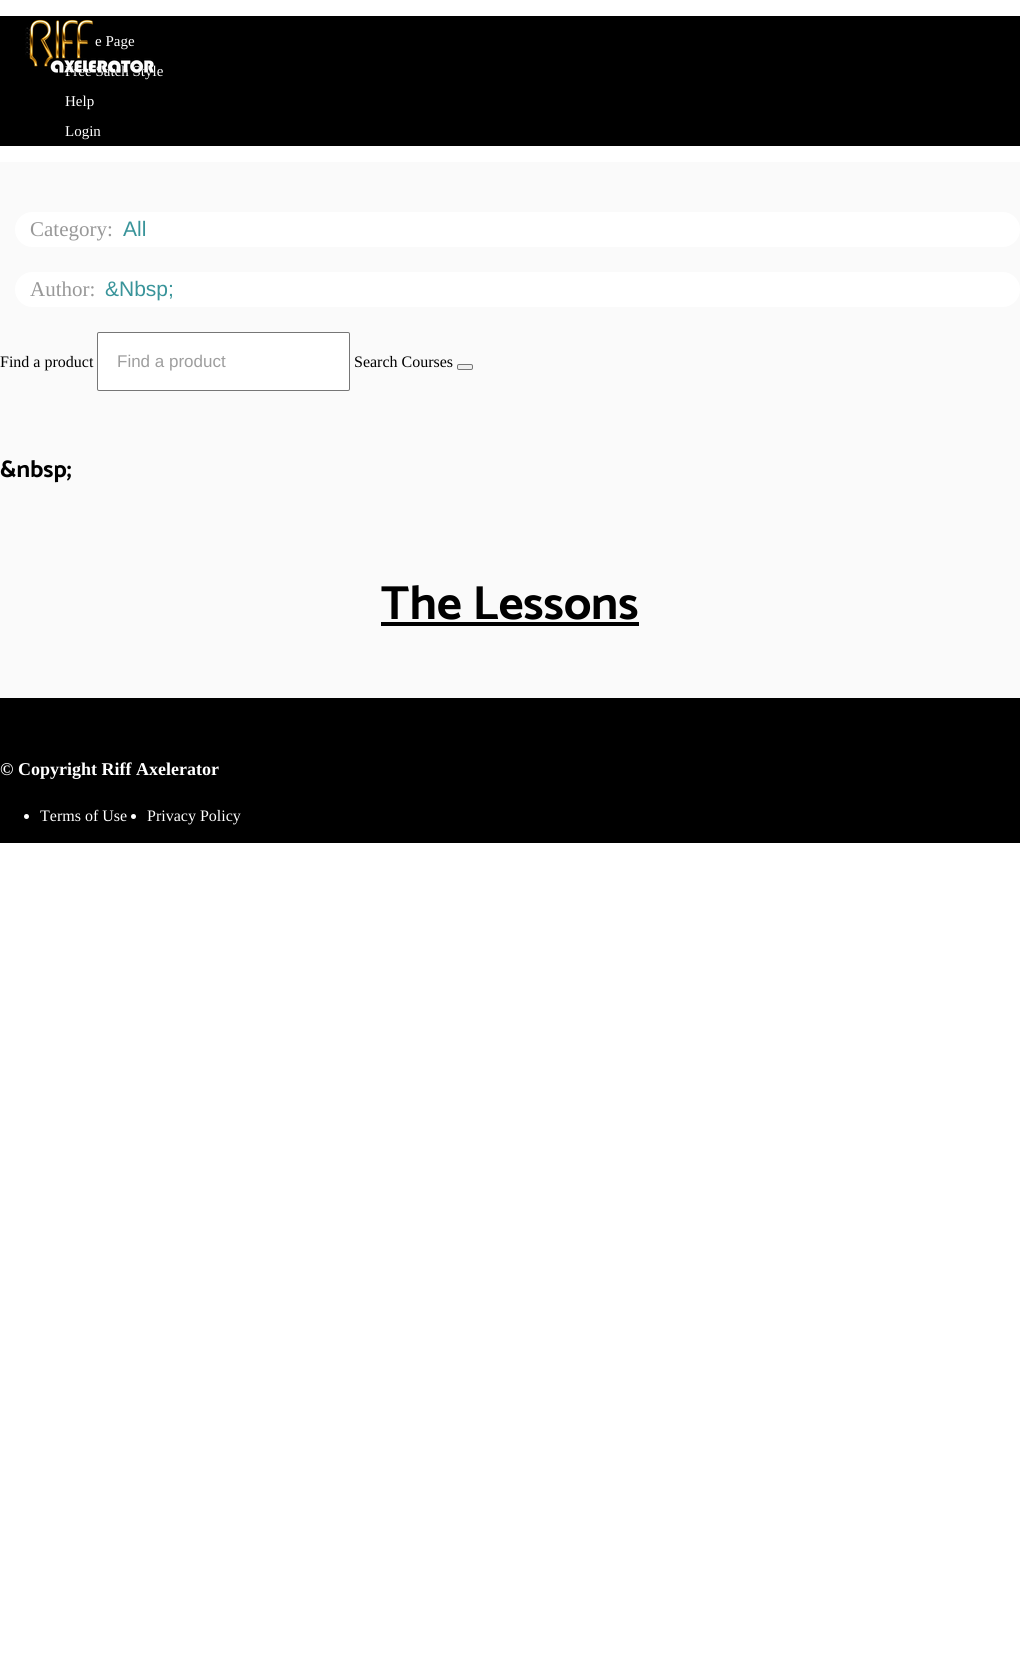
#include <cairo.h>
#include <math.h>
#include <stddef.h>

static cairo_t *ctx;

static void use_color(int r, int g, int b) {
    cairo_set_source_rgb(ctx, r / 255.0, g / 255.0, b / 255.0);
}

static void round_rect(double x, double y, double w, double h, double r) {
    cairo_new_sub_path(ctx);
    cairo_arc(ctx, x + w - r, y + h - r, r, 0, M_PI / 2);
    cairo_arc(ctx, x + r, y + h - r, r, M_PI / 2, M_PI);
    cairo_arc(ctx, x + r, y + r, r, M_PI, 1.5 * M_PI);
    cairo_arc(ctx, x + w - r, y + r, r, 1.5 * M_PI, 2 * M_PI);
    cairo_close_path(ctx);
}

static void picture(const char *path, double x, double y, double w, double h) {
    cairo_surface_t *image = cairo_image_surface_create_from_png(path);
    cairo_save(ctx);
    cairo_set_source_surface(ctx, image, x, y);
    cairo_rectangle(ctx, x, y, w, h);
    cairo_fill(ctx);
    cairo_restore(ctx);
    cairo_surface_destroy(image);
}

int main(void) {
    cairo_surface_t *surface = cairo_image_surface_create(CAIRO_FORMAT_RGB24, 1020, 1676);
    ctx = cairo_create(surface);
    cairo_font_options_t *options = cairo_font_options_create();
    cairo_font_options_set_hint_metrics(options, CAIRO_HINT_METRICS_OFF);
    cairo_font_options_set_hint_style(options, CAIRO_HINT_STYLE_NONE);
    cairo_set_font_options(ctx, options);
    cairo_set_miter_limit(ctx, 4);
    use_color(255, 255, 255);
    cairo_paint(ctx);
    use_color(0, 0, 0);
    cairo_rectangle(ctx, 0, 16, 1020, 130);
    cairo_fill(ctx);
    cairo_select_font_face(ctx, "Liberation Serif", CAIRO_FONT_SLANT_NORMAL, CAIRO_FONT_WEIGHT_NORMAL);
    cairo_set_font_size(ctx, 15);
    use_color(255, 255, 255);
    cairo_move_to(ctx, 95, 46);
    cairo_show_text(ctx, "e Page");
    cairo_move_to(ctx, 65, 76);
    cairo_show_text(ctx, "Free Satch Style");
    picture("img1.png", 25, 19, 130, 55);
    cairo_move_to(ctx, 65, 106);
    cairo_show_text(ctx, "Help");
    cairo_move_to(ctx, 65, 136);
    cairo_show_text(ctx, "Login");
    use_color(250, 250, 250);
    cairo_rectangle(ctx, 0, 162, 1020, 536);
    cairo_fill(ctx);
    use_color(255, 255, 255);
    round_rect(15, 212, 1005, 35, 17.5);
    cairo_fill(ctx);
    cairo_set_font_size(ctx, 21);
    use_color(152, 152, 152);
    cairo_move_to(ctx, 30, 236);
    cairo_show_text(ctx, "Category:");
    cairo_select_font_face(ctx, "Liberation Sans", CAIRO_FONT_SLANT_NORMAL, CAIRO_FONT_WEIGHT_NORMAL);
    use_color(57, 148, 154);
    cairo_move_to(ctx, 123, 236);
    cairo_show_text(ctx, "All");
    use_color(255, 255, 255);
    round_rect(15, 272, 1005, 35, 17.5);
    cairo_fill(ctx);
    cairo_select_font_face(ctx, "Liberation Serif", CAIRO_FONT_SLANT_NORMAL, CAIRO_FONT_WEIGHT_NORMAL);
    use_color(152, 152, 152);
    cairo_move_to(ctx, 30, 296);
    cairo_show_text(ctx, "Author:");
    cairo_select_font_face(ctx, "Liberation Sans", CAIRO_FONT_SLANT_NORMAL, CAIRO_FONT_WEIGHT_NORMAL);
    use_color(57, 148, 154);
    cairo_move_to(ctx, 105, 296);
    cairo_show_text(ctx, "&Nbsp;");
    cairo_select_font_face(ctx, "Liberation Serif", CAIRO_FONT_SLANT_NORMAL, CAIRO_FONT_WEIGHT_NORMAL);
    cairo_set_font_size(ctx, 16);
    use_color(0, 0, 0);
    cairo_move_to(ctx, 0, 367);
    cairo_show_text(ctx, "Find a product");
    use_color(255, 255, 255);
    round_rect(97.5, 332.5, 252, 58, 1.5);
    cairo_fill_preserve(ctx);
    use_color(118, 118, 118);
    cairo_set_line_width(ctx, 1);
    cairo_stroke(ctx);
    cairo_select_font_face(ctx, "Liberation Sans", CAIRO_FONT_SLANT_NORMAL, CAIRO_FONT_WEIGHT_NORMAL);
    cairo_set_font_size(ctx, 17);
    use_color(158, 158, 158);
    cairo_move_to(ctx, 117, 367);
    cairo_show_text(ctx, "Find a product");
    cairo_select_font_face(ctx, "Liberation Serif", CAIRO_FONT_SLANT_NORMAL, CAIRO_FONT_WEIGHT_NORMAL);
    cairo_set_font_size(ctx, 16);
    use_color(0, 0, 0);
    cairo_move_to(ctx, 354, 367);
    cairo_show_text(ctx, "Search Courses");
    use_color(239, 239, 239);
    round_rect(457.5, 364.5, 15, 5, 1.5);
    cairo_fill_preserve(ctx);
    use_color(118, 118, 118);
    cairo_stroke(ctx);
    cairo_select_font_face(ctx, "Catamaran", CAIRO_FONT_SLANT_NORMAL, CAIRO_FONT_WEIGHT_BOLD);
    cairo_set_font_size(ctx, 24);
    use_color(0, 0, 0);
    cairo_move_to(ctx, 0, 477);
    cairo_show_text(ctx, "&nbsp;");
    cairo_set_font_size(ctx, 48);
    cairo_move_to(ctx, 381, 619);
    cairo_show_text(ctx, "The Lessons");
    cairo_rectangle(ctx, 381, 622, 258, 4);
    cairo_fill(ctx);
    cairo_rectangle(ctx, 0, 698, 1020, 145);
    cairo_fill(ctx);
    cairo_select_font_face(ctx, "Liberation Serif", CAIRO_FONT_SLANT_NORMAL, CAIRO_FONT_WEIGHT_BOLD);
    cairo_set_font_size(ctx, 18);
    use_color(255, 255, 255);
    cairo_move_to(ctx, 0, 775);
    cairo_show_text(ctx, "© Copyright Riff Axelerator");
    cairo_new_path(ctx);
    cairo_arc(ctx, 26.5, 816.5, 2.5, 0, 2 * M_PI);
    cairo_fill(ctx);
    cairo_select_font_face(ctx, "Liberation Serif", CAIRO_FONT_SLANT_NORMAL, CAIRO_FONT_WEIGHT_NORMAL);
    cairo_set_font_size(ctx, 16);
    cairo_move_to(ctx, 40, 821);
    cairo_show_text(ctx, "Terms of Use");
    cairo_new_path(ctx);
    cairo_arc(ctx, 133.5, 816.5, 2.5, 0, 2 * M_PI);
    cairo_fill(ctx);
    cairo_move_to(ctx, 147, 821);
    cairo_show_text(ctx, "Privacy Policy");
    cairo_surface_write_to_png(surface, "result.png");
    cairo_font_options_destroy(options);
    cairo_destroy(ctx);
    cairo_surface_destroy(surface);
    return 0;
}
